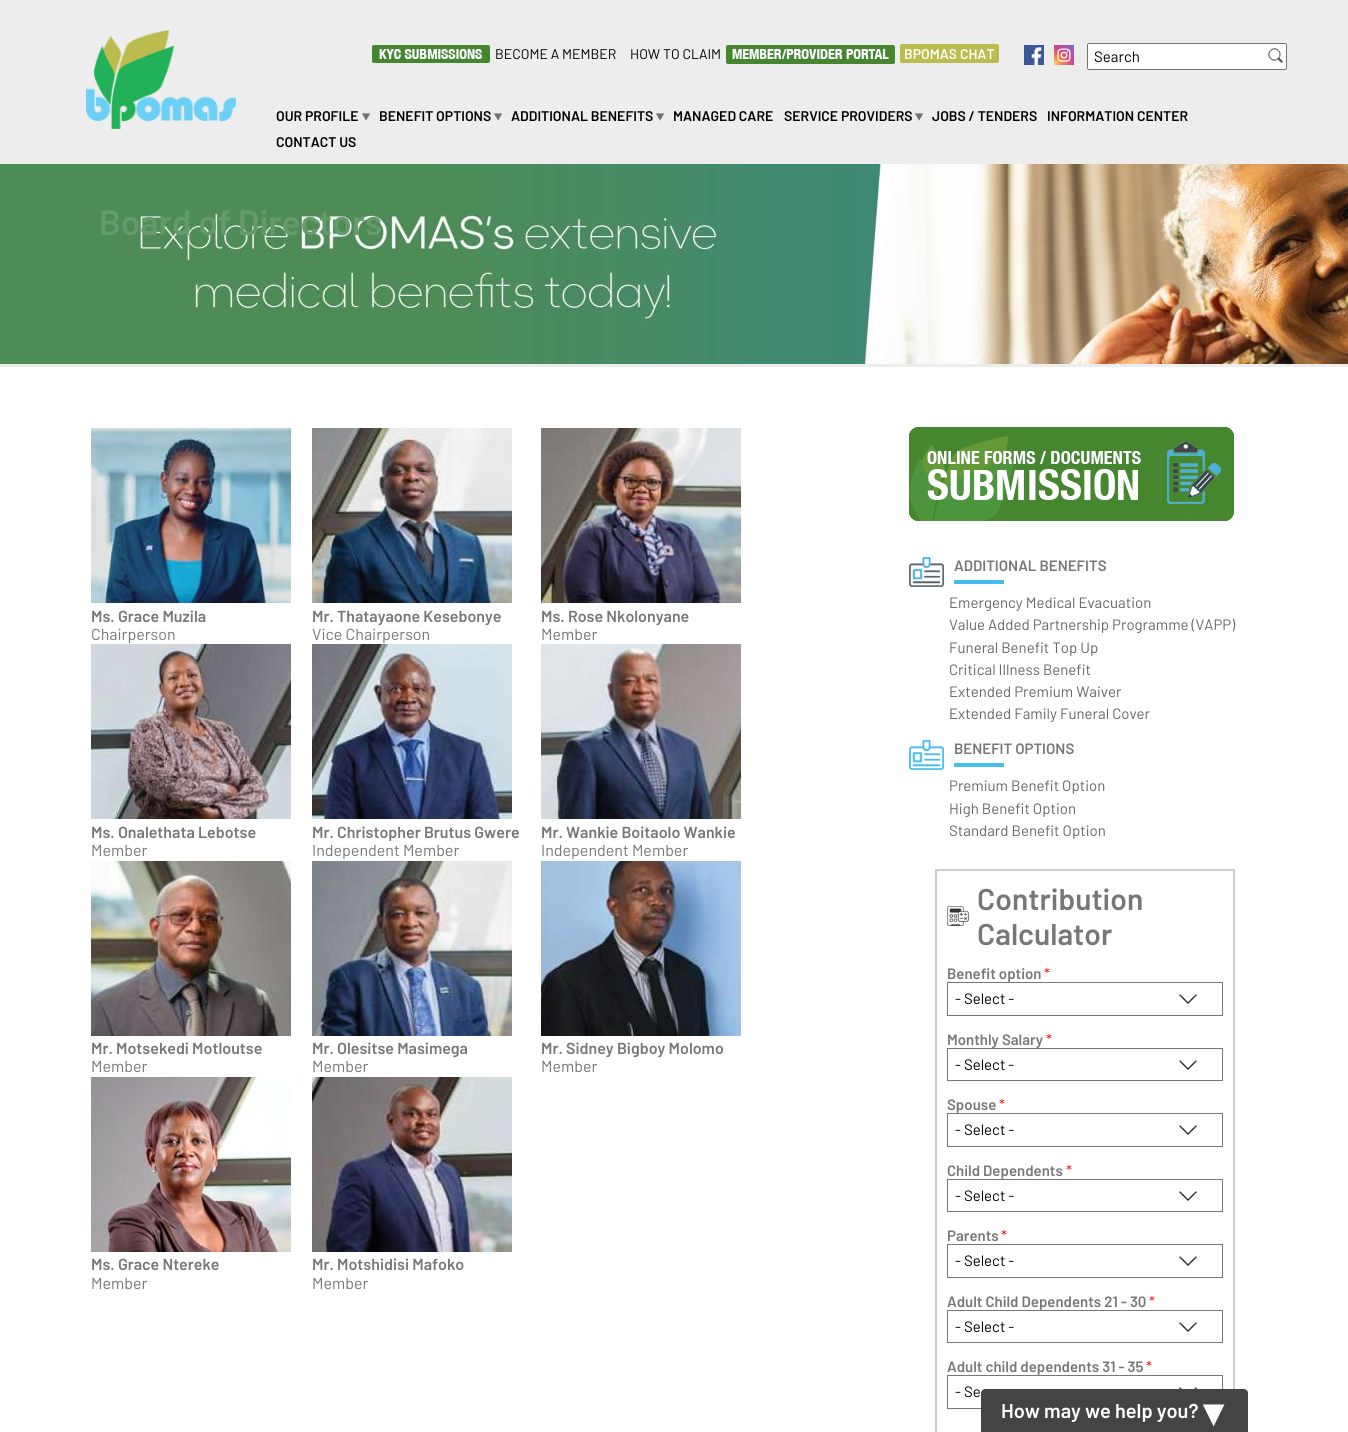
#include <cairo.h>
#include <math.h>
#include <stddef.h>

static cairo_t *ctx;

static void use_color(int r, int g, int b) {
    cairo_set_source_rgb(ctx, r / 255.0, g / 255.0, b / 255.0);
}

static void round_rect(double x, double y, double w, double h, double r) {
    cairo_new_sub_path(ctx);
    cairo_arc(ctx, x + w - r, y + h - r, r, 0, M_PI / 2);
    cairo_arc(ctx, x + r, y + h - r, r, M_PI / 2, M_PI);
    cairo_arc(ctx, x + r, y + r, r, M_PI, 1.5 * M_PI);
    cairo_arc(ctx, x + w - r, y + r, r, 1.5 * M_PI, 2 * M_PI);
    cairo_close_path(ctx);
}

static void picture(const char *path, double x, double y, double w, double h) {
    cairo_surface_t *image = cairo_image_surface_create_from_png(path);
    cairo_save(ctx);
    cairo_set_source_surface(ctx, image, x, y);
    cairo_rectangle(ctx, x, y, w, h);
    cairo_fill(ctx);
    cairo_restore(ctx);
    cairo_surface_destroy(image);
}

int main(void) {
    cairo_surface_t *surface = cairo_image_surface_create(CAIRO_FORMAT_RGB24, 1348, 1432);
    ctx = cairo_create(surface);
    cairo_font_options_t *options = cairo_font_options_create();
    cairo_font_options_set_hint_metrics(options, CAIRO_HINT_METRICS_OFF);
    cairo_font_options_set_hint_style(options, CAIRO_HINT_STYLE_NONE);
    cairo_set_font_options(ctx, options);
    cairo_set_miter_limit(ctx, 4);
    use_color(237, 237, 237);
    cairo_paint(ctx);
    picture("img1.png", 86, 30, 150, 99);
    picture("img2.png", 372, 45, 118, 18);
    cairo_select_font_face(ctx, "Barlow", CAIRO_FONT_SLANT_NORMAL, CAIRO_FONT_WEIGHT_NORMAL);
    cairo_set_font_size(ctx, 14);
    use_color(0, 0, 0);
    cairo_move_to(ctx, 495, 59);
    cairo_show_text(ctx, "BECOME A MEMBER");
    cairo_move_to(ctx, 630, 59);
    cairo_show_text(ctx, "HOW TO CLAIM");
    picture("img3.png", 726, 45, 169, 19);
    use_color(187, 188, 77);
    round_rect(900, 44, 99, 19, 2);
    cairo_fill(ctx);
    cairo_select_font_face(ctx, "Barlow SemiBold", CAIRO_FONT_SLANT_NORMAL, CAIRO_FONT_WEIGHT_NORMAL);
    use_color(255, 255, 255);
    cairo_move_to(ctx, 904, 59);
    cairo_show_text(ctx, "BPOMAS CHAT");
    picture("img4.png", 1024, 45, 20, 20);
    picture("img5.png", 1054, 45, 20, 20);
    round_rect(1087.5, 43.5, 199, 26, 1.5);
    cairo_fill_preserve(ctx);
    use_color(118, 118, 118);
    cairo_set_line_width(ctx, 1);
    cairo_stroke(ctx);
    cairo_select_font_face(ctx, "Barlow", CAIRO_FONT_SLANT_NORMAL, CAIRO_FONT_WEIGHT_NORMAL);
    cairo_set_font_size(ctx, 15);
    use_color(0, 0, 0);
    cairo_move_to(ctx, 1094, 62);
    cairo_show_text(ctx, "Search");
    picture("img6.png", 1268, 48, 15, 15);
    picture("img7.png", 361, 113, 10, 8);
    cairo_select_font_face(ctx, "Barlow SemiBold", CAIRO_FONT_SLANT_NORMAL, CAIRO_FONT_WEIGHT_NORMAL);
    cairo_set_font_size(ctx, 14);
    cairo_move_to(ctx, 276, 121);
    cairo_show_text(ctx, "OUR PROFILE");
    picture("img7.png", 493, 113, 10, 8);
    cairo_move_to(ctx, 379, 121);
    cairo_show_text(ctx, "BENEFIT OPTIONS");
    picture("img7.png", 655, 113, 10, 8);
    cairo_move_to(ctx, 511, 121);
    cairo_show_text(ctx, "ADDITIONAL BENEFITS");
    cairo_move_to(ctx, 673, 121);
    cairo_show_text(ctx, "MANAGED CARE");
    picture("img7.png", 914, 113, 10, 8);
    cairo_move_to(ctx, 784, 121);
    cairo_show_text(ctx, "SERVICE PROVIDERS");
    cairo_move_to(ctx, 932, 121);
    cairo_show_text(ctx, "JOBS / TENDERS");
    cairo_move_to(ctx, 1047, 121);
    cairo_show_text(ctx, "INFORMATION CENTER");
    cairo_move_to(ctx, 276, 147);
    cairo_show_text(ctx, "CONTACT US");
    picture("img8.png", 0, 164, 1348, 200);
    cairo_set_font_size(ctx, 35);
    use_color(100, 154, 108);
    cairo_move_to(ctx, 99, 235);
    cairo_show_text(ctx, "Board of Directors");
    use_color(255, 255, 255);
    cairo_rectangle(ctx, 0, 367, 1348, 1065);
    cairo_fill(ctx);
    picture("img9.png", 909, 427, 325, 94);
    picture("img10.png", 909, 557, 35, 30);
    cairo_set_font_size(ctx, 15);
    use_color(119, 119, 119);
    cairo_move_to(ctx, 954, 571);
    cairo_show_text(ctx, "ADDITIONAL BENEFITS");
    use_color(71, 189, 237);
    cairo_rectangle(ctx, 954, 580, 50, 4);
    cairo_fill(ctx);
    cairo_select_font_face(ctx, "Barlow", CAIRO_FONT_SLANT_NORMAL, CAIRO_FONT_WEIGHT_NORMAL);
    use_color(102, 102, 102);
    cairo_move_to(ctx, 949, 608);
    cairo_show_text(ctx, "Emergency Medical Evacuation");
    cairo_move_to(ctx, 949, 630);
    cairo_show_text(ctx, "Value Added Partnership Programme (VAPP)");
    cairo_move_to(ctx, 949, 653);
    cairo_show_text(ctx, "Funeral Benefit Top Up");
    cairo_move_to(ctx, 949, 675);
    cairo_show_text(ctx, "Critical Illness Benefit");
    cairo_move_to(ctx, 949, 697);
    cairo_show_text(ctx, "Extended Premium Waiver");
    cairo_move_to(ctx, 949, 719);
    cairo_show_text(ctx, "Extended Family Funeral Cover");
    picture("img11.png", 909, 740, 35, 30);
    cairo_select_font_face(ctx, "Barlow SemiBold", CAIRO_FONT_SLANT_NORMAL, CAIRO_FONT_WEIGHT_NORMAL);
    use_color(119, 119, 119);
    cairo_move_to(ctx, 954, 754);
    cairo_show_text(ctx, "BENEFIT OPTIONS");
    use_color(71, 189, 237);
    cairo_rectangle(ctx, 954, 763, 50, 4);
    cairo_fill(ctx);
    cairo_select_font_face(ctx, "Barlow", CAIRO_FONT_SLANT_NORMAL, CAIRO_FONT_WEIGHT_NORMAL);
    use_color(102, 102, 102);
    cairo_move_to(ctx, 949, 791);
    cairo_show_text(ctx, "Premium Benefit Option");
    cairo_move_to(ctx, 949, 814);
    cairo_show_text(ctx, "High Benefit Option");
    cairo_move_to(ctx, 949, 836);
    cairo_show_text(ctx, "Standard Benefit Option");
    cairo_rectangle(ctx, 936, 870, 298, 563);
    use_color(204, 204, 204);
    cairo_set_line_width(ctx, 2);
    cairo_stroke(ctx);
    picture("img12.png", 947, 906, 22, 20);
    cairo_select_font_face(ctx, "Barlow SemiBold", CAIRO_FONT_SLANT_NORMAL, CAIRO_FONT_WEIGHT_NORMAL);
    cairo_set_font_size(ctx, 30);
    use_color(119, 119, 119);
    cairo_move_to(ctx, 977, 910);
    cairo_show_text(ctx, "Contribution");
    cairo_move_to(ctx, 977, 945);
    cairo_show_text(ctx, "Calculator");
    cairo_set_font_size(ctx, 15);
    cairo_move_to(ctx, 947, 979);
    cairo_show_text(ctx, "Benefit option");
    cairo_select_font_face(ctx, "Barlow", CAIRO_FONT_SLANT_NORMAL, CAIRO_FONT_WEIGHT_NORMAL);
    use_color(255, 0, 0);
    cairo_move_to(ctx, 1044, 979);
    cairo_show_text(ctx, "*");
    picture("img13.png", 1179, 994, 19, 10);
    cairo_rectangle(ctx, 947.5, 982.5, 275, 33);
    use_color(118, 118, 118);
    cairo_set_line_width(ctx, 1);
    cairo_stroke(ctx);
    use_color(0, 0, 0);
    cairo_move_to(ctx, 955, 1004);
    cairo_show_text(ctx, "- Select -");
    cairo_select_font_face(ctx, "Barlow SemiBold", CAIRO_FONT_SLANT_NORMAL, CAIRO_FONT_WEIGHT_NORMAL);
    use_color(119, 119, 119);
    cairo_move_to(ctx, 947, 1045);
    cairo_show_text(ctx, "Monthly Salary");
    cairo_select_font_face(ctx, "Barlow", CAIRO_FONT_SLANT_NORMAL, CAIRO_FONT_WEIGHT_NORMAL);
    use_color(255, 0, 0);
    cairo_move_to(ctx, 1046, 1045);
    cairo_show_text(ctx, "*");
    picture("img13.png", 1179, 1060, 19, 10);
    cairo_rectangle(ctx, 947.5, 1048.5, 275, 32);
    use_color(118, 118, 118);
    cairo_stroke(ctx);
    use_color(0, 0, 0);
    cairo_move_to(ctx, 955, 1070);
    cairo_show_text(ctx, "- Select -");
    cairo_select_font_face(ctx, "Barlow SemiBold", CAIRO_FONT_SLANT_NORMAL, CAIRO_FONT_WEIGHT_NORMAL);
    use_color(119, 119, 119);
    cairo_move_to(ctx, 947, 1110);
    cairo_show_text(ctx, "Spouse");
    cairo_select_font_face(ctx, "Barlow", CAIRO_FONT_SLANT_NORMAL, CAIRO_FONT_WEIGHT_NORMAL);
    use_color(255, 0, 0);
    cairo_move_to(ctx, 999, 1110);
    cairo_show_text(ctx, "*");
    picture("img13.png", 1179, 1125, 19, 10);
    cairo_rectangle(ctx, 947.5, 1113.5, 275, 33);
    use_color(118, 118, 118);
    cairo_stroke(ctx);
    use_color(0, 0, 0);
    cairo_move_to(ctx, 955, 1135);
    cairo_show_text(ctx, "- Select -");
    cairo_select_font_face(ctx, "Barlow SemiBold", CAIRO_FONT_SLANT_NORMAL, CAIRO_FONT_WEIGHT_NORMAL);
    use_color(119, 119, 119);
    cairo_move_to(ctx, 947, 1176);
    cairo_show_text(ctx, "Child Dependents");
    cairo_select_font_face(ctx, "Barlow", CAIRO_FONT_SLANT_NORMAL, CAIRO_FONT_WEIGHT_NORMAL);
    use_color(255, 0, 0);
    cairo_move_to(ctx, 1066, 1176);
    cairo_show_text(ctx, "*");
    picture("img13.png", 1179, 1191, 19, 10);
    cairo_rectangle(ctx, 947.5, 1179.5, 275, 32);
    use_color(118, 118, 118);
    cairo_stroke(ctx);
    use_color(0, 0, 0);
    cairo_move_to(ctx, 955, 1201);
    cairo_show_text(ctx, "- Select -");
    cairo_select_font_face(ctx, "Barlow SemiBold", CAIRO_FONT_SLANT_NORMAL, CAIRO_FONT_WEIGHT_NORMAL);
    use_color(119, 119, 119);
    cairo_move_to(ctx, 947, 1241);
    cairo_show_text(ctx, "Parents");
    cairo_select_font_face(ctx, "Barlow", CAIRO_FONT_SLANT_NORMAL, CAIRO_FONT_WEIGHT_NORMAL);
    use_color(255, 0, 0);
    cairo_move_to(ctx, 1001, 1241);
    cairo_show_text(ctx, "*");
    picture("img13.png", 1179, 1256, 19, 10);
    cairo_rectangle(ctx, 947.5, 1244.5, 275, 33);
    use_color(118, 118, 118);
    cairo_stroke(ctx);
    use_color(0, 0, 0);
    cairo_move_to(ctx, 955, 1266);
    cairo_show_text(ctx, "- Select -");
    cairo_select_font_face(ctx, "Barlow SemiBold", CAIRO_FONT_SLANT_NORMAL, CAIRO_FONT_WEIGHT_NORMAL);
    use_color(119, 119, 119);
    cairo_move_to(ctx, 947, 1307);
    cairo_show_text(ctx, "Adult Child Dependents 21 - 30");
    cairo_select_font_face(ctx, "Barlow", CAIRO_FONT_SLANT_NORMAL, CAIRO_FONT_WEIGHT_NORMAL);
    use_color(255, 0, 0);
    cairo_move_to(ctx, 1149, 1307);
    cairo_show_text(ctx, "*");
    picture("img13.png", 1179, 1322, 19, 10);
    cairo_rectangle(ctx, 947.5, 1310.5, 275, 32);
    use_color(118, 118, 118);
    cairo_stroke(ctx);
    use_color(0, 0, 0);
    cairo_move_to(ctx, 955, 1332);
    cairo_show_text(ctx, "- Select -");
    cairo_select_font_face(ctx, "Barlow SemiBold", CAIRO_FONT_SLANT_NORMAL, CAIRO_FONT_WEIGHT_NORMAL);
    use_color(119, 119, 119);
    cairo_move_to(ctx, 947, 1372);
    cairo_show_text(ctx, "Adult child dependents 31 - 35");
    cairo_select_font_face(ctx, "Barlow", CAIRO_FONT_SLANT_NORMAL, CAIRO_FONT_WEIGHT_NORMAL);
    use_color(255, 0, 0);
    cairo_move_to(ctx, 1146, 1372);
    cairo_show_text(ctx, "*");
    picture("img14.png", 1179, 1387, 19, 2);
    cairo_rectangle(ctx, 947.5, 1375.5, 275, 33);
    use_color(118, 118, 118);
    cairo_stroke(ctx);
    use_color(0, 0, 0);
    cairo_move_to(ctx, 955, 1397);
    cairo_show_text(ctx, "- Se");
    picture("img15.png", 91, 428, 200, 175);
    cairo_select_font_face(ctx, "Barlow SemiBold", CAIRO_FONT_SLANT_NORMAL, CAIRO_FONT_WEIGHT_NORMAL);
    cairo_set_font_size(ctx, 16);
    use_color(119, 119, 119);
    cairo_move_to(ctx, 91, 622);
    cairo_show_text(ctx, "Ms. Grace Muzila");
    cairo_select_font_face(ctx, "Barlow", CAIRO_FONT_SLANT_NORMAL, CAIRO_FONT_WEIGHT_NORMAL);
    cairo_move_to(ctx, 91, 640);
    cairo_show_text(ctx, "Chairperson");
    picture("img16.png", 312, 428, 200, 175);
    cairo_select_font_face(ctx, "Barlow SemiBold", CAIRO_FONT_SLANT_NORMAL, CAIRO_FONT_WEIGHT_NORMAL);
    cairo_move_to(ctx, 312, 622);
    cairo_show_text(ctx, "Mr. Thatayaone Kesebonye");
    cairo_select_font_face(ctx, "Barlow", CAIRO_FONT_SLANT_NORMAL, CAIRO_FONT_WEIGHT_NORMAL);
    cairo_move_to(ctx, 312, 640);
    cairo_show_text(ctx, "Vice Chairperson");
    picture("img17.png", 541, 428, 200, 175);
    cairo_select_font_face(ctx, "Barlow SemiBold", CAIRO_FONT_SLANT_NORMAL, CAIRO_FONT_WEIGHT_NORMAL);
    cairo_move_to(ctx, 541, 622);
    cairo_show_text(ctx, "Ms. Rose Nkolonyane");
    cairo_select_font_face(ctx, "Barlow", CAIRO_FONT_SLANT_NORMAL, CAIRO_FONT_WEIGHT_NORMAL);
    cairo_move_to(ctx, 541, 640);
    cairo_show_text(ctx, "Member");
    picture("img18.png", 91, 644, 200, 175);
    cairo_select_font_face(ctx, "Barlow SemiBold", CAIRO_FONT_SLANT_NORMAL, CAIRO_FONT_WEIGHT_NORMAL);
    cairo_move_to(ctx, 91, 838);
    cairo_show_text(ctx, "Ms. Onalethata Lebotse");
    cairo_select_font_face(ctx, "Barlow", CAIRO_FONT_SLANT_NORMAL, CAIRO_FONT_WEIGHT_NORMAL);
    cairo_move_to(ctx, 91, 856);
    cairo_show_text(ctx, "Member");
    picture("img19.png", 312, 644, 200, 175);
    cairo_select_font_face(ctx, "Barlow SemiBold", CAIRO_FONT_SLANT_NORMAL, CAIRO_FONT_WEIGHT_NORMAL);
    cairo_move_to(ctx, 312, 838);
    cairo_show_text(ctx, "Mr. Christopher Brutus Gwere");
    cairo_select_font_face(ctx, "Barlow", CAIRO_FONT_SLANT_NORMAL, CAIRO_FONT_WEIGHT_NORMAL);
    cairo_move_to(ctx, 312, 856);
    cairo_show_text(ctx, "Independent Member");
    picture("img20.png", 541, 644, 200, 175);
    cairo_select_font_face(ctx, "Barlow SemiBold", CAIRO_FONT_SLANT_NORMAL, CAIRO_FONT_WEIGHT_NORMAL);
    cairo_move_to(ctx, 541, 838);
    cairo_show_text(ctx, "Mr. Wankie Boitaolo Wankie");
    cairo_select_font_face(ctx, "Barlow", CAIRO_FONT_SLANT_NORMAL, CAIRO_FONT_WEIGHT_NORMAL);
    cairo_move_to(ctx, 541, 856);
    cairo_show_text(ctx, "Independent Member");
    picture("img21.png", 91, 861, 200, 175);
    cairo_select_font_face(ctx, "Barlow SemiBold", CAIRO_FONT_SLANT_NORMAL, CAIRO_FONT_WEIGHT_NORMAL);
    cairo_move_to(ctx, 91, 1054);
    cairo_show_text(ctx, "Mr. Motsekedi Motloutse");
    cairo_select_font_face(ctx, "Barlow", CAIRO_FONT_SLANT_NORMAL, CAIRO_FONT_WEIGHT_NORMAL);
    cairo_move_to(ctx, 91, 1072);
    cairo_show_text(ctx, "Member");
    picture("img22.png", 312, 861, 200, 175);
    cairo_select_font_face(ctx, "Barlow SemiBold", CAIRO_FONT_SLANT_NORMAL, CAIRO_FONT_WEIGHT_NORMAL);
    cairo_move_to(ctx, 312, 1054);
    cairo_show_text(ctx, "Mr. Olesitse Masimega");
    cairo_select_font_face(ctx, "Barlow", CAIRO_FONT_SLANT_NORMAL, CAIRO_FONT_WEIGHT_NORMAL);
    cairo_move_to(ctx, 312, 1072);
    cairo_show_text(ctx, "Member");
    picture("img23.png", 541, 861, 200, 175);
    cairo_select_font_face(ctx, "Barlow SemiBold", CAIRO_FONT_SLANT_NORMAL, CAIRO_FONT_WEIGHT_NORMAL);
    cairo_move_to(ctx, 541, 1054);
    cairo_show_text(ctx, "Mr. Sidney Bigboy Molomo");
    cairo_select_font_face(ctx, "Barlow", CAIRO_FONT_SLANT_NORMAL, CAIRO_FONT_WEIGHT_NORMAL);
    cairo_move_to(ctx, 541, 1072);
    cairo_show_text(ctx, "Member");
    picture("img24.png", 91, 1077, 200, 175);
    cairo_select_font_face(ctx, "Barlow SemiBold", CAIRO_FONT_SLANT_NORMAL, CAIRO_FONT_WEIGHT_NORMAL);
    cairo_move_to(ctx, 91, 1270);
    cairo_show_text(ctx, "Ms. Grace Ntereke");
    cairo_select_font_face(ctx, "Barlow", CAIRO_FONT_SLANT_NORMAL, CAIRO_FONT_WEIGHT_NORMAL);
    cairo_move_to(ctx, 91, 1289);
    cairo_show_text(ctx, "Member");
    picture("img25.png", 312, 1077, 200, 175);
    cairo_select_font_face(ctx, "Barlow SemiBold", CAIRO_FONT_SLANT_NORMAL, CAIRO_FONT_WEIGHT_NORMAL);
    cairo_move_to(ctx, 312, 1270);
    cairo_show_text(ctx, "Mr. Motshidisi Mafoko");
    cairo_select_font_face(ctx, "Barlow", CAIRO_FONT_SLANT_NORMAL, CAIRO_FONT_WEIGHT_NORMAL);
    cairo_move_to(ctx, 312, 1289);
    cairo_show_text(ctx, "Member");
    use_color(68, 68, 68);
    cairo_new_path(ctx);
    cairo_move_to(ctx, 985, 1389);
    cairo_line_to(ctx, 1244, 1389);
    cairo_curve_to(ctx, 1246, 1389, 1248, 1391, 1248, 1393);
    cairo_line_to(ctx, 1248, 1432);
    cairo_line_to(ctx, 981, 1432);
    cairo_line_to(ctx, 981, 1393);
    cairo_curve_to(ctx, 981, 1391, 983, 1389, 985, 1389);
    cairo_close_path(ctx);
    cairo_fill(ctx);
    cairo_select_font_face(ctx, "Barlow SemiBold", CAIRO_FONT_SLANT_NORMAL, CAIRO_FONT_WEIGHT_NORMAL);
    cairo_set_font_size(ctx, 20);
    use_color(255, 255, 255);
    cairo_move_to(ctx, 1001, 1418);
    cairo_show_text(ctx, "How may we help you?");
    cairo_select_font_face(ctx, "DejaVu Sans", CAIRO_FONT_SLANT_NORMAL, CAIRO_FONT_WEIGHT_BOLD);
    cairo_set_font_size(ctx, 40);
    cairo_move_to(ctx, 1203, 1426);
    cairo_show_text(ctx, "▾");
    cairo_surface_write_to_png(surface, "result.png");
    cairo_font_options_destroy(options);
    cairo_destroy(ctx);
    cairo_surface_destroy(surface);
    return 0;
}
